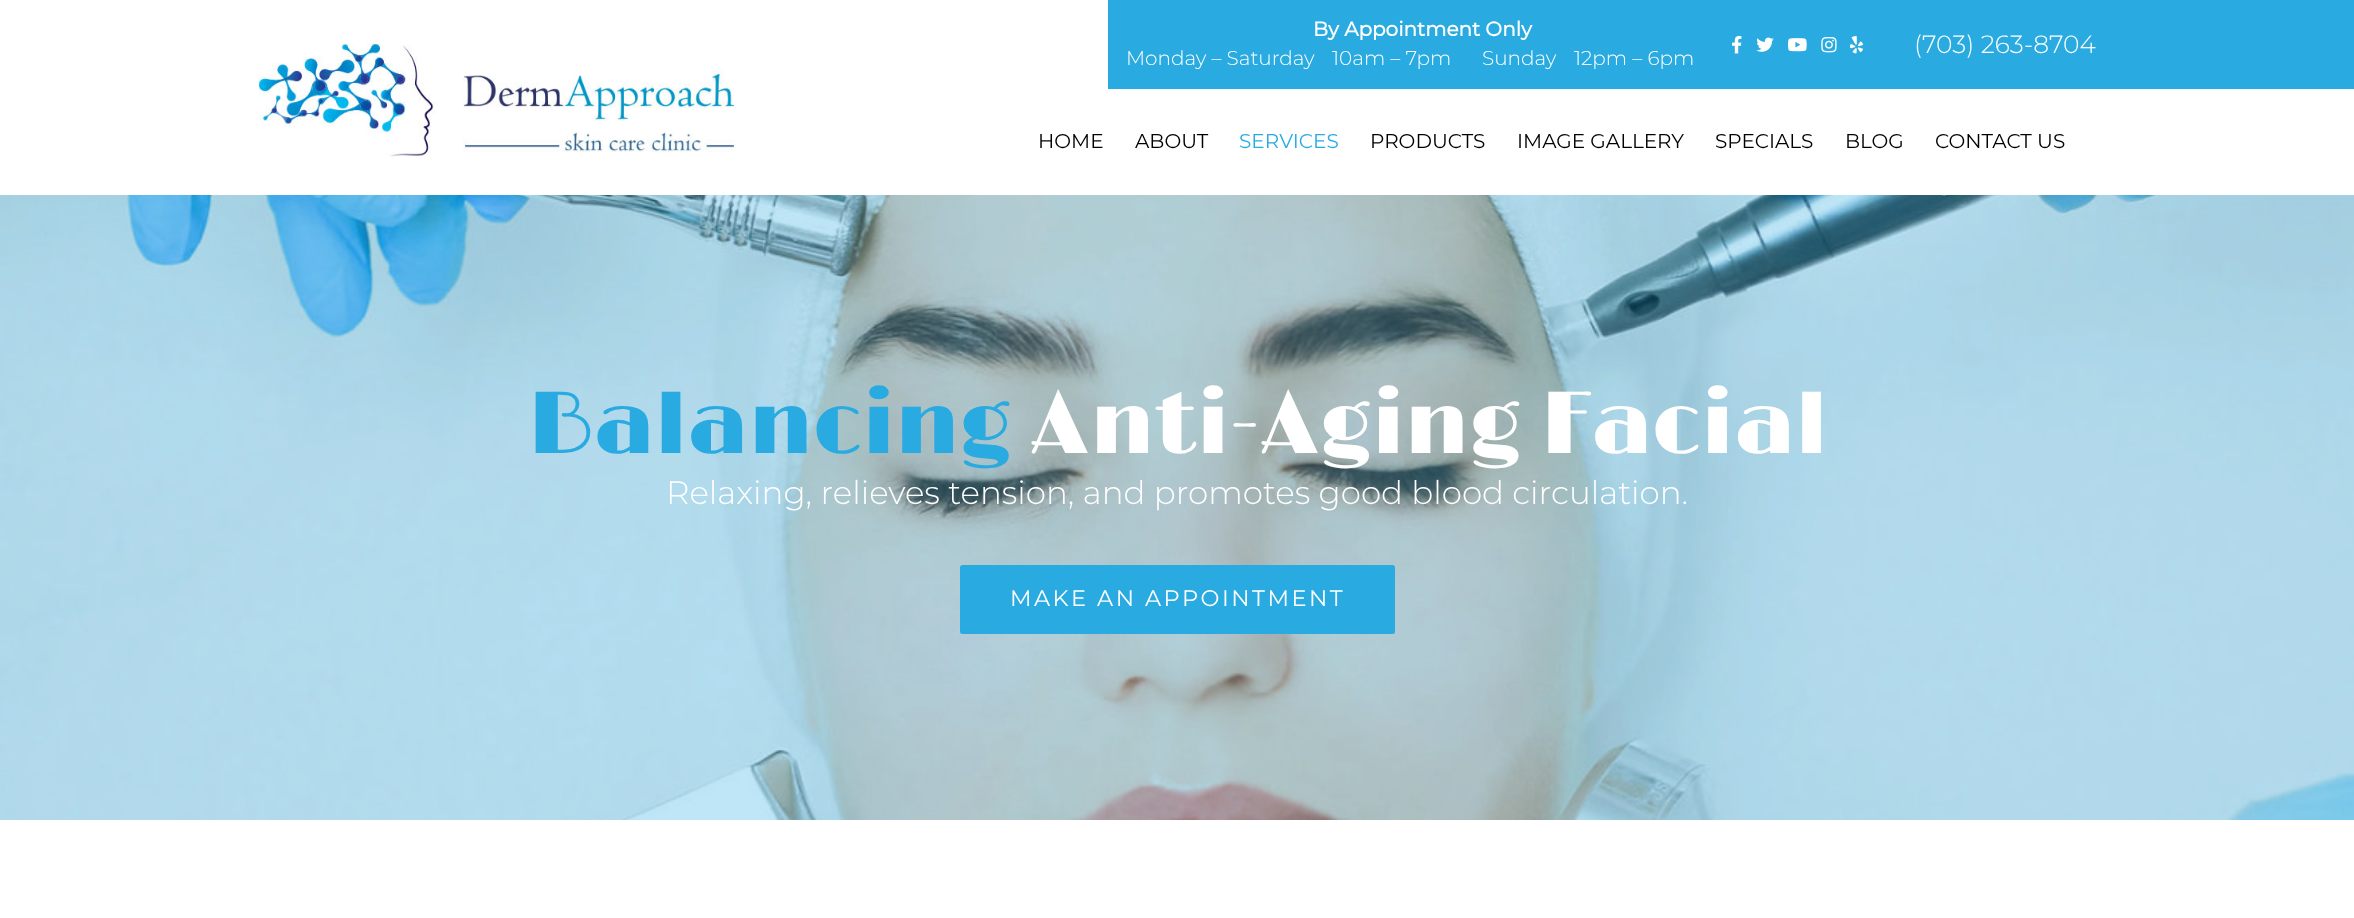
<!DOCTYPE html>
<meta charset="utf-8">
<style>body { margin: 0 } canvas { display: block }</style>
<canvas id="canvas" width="2354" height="918"></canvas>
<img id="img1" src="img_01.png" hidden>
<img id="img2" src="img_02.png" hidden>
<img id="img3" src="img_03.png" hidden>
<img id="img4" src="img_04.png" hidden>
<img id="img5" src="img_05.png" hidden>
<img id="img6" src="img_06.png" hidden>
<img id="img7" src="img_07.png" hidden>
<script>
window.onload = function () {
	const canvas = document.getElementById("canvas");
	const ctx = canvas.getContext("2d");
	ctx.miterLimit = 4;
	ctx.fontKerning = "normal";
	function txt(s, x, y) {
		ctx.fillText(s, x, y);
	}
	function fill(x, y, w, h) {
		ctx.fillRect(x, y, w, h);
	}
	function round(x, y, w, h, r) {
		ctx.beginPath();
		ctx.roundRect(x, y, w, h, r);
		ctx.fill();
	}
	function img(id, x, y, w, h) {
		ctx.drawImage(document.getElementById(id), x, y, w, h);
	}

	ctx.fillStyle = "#FFFFFF";
	fill(0, 0, 2354, 918);
	ctx.fillStyle = "#29ABE1";
	fill(1108, 0, 1246, 89);
	img("img1", 1732, 35, 10, 19);
	img("img2", 1756, 37, 18, 15);
	img("img3", 1788, 38, 19, 14);
	img("img4", 1821, 37, 16, 16);
	img("img5", 1850, 36, 14, 18);
	img("img6", 259, 44, 475, 113);
	img("img7", 0, 195, 2354, 625);
	round(960, 565, 435, 69, 2.5);
	ctx.font = "bold 20px Montserrat";
	ctx.fillStyle = "#FFFFFF";
	txt("By Appointment Only", 1313, 36);
	ctx.font = "300 20px Montserrat";
	txt("Monday – Saturday", 1126, 65);
	txt("10am – 7pm", 1332, 65);
	txt("Sunday", 1482, 65);
	txt("12pm – 6pm", 1574, 65);
	ctx.font = "300 25px Montserrat";
	txt("(703) 263-8704", 1914, 53);
	ctx.font = "20px Montserrat";
	ctx.fillStyle = "#000000";
	txt("HOME", 1038, 148);
	txt("ABOUT", 1135, 148);
	ctx.fillStyle = "#29ABE1";
	txt("SERVICES", 1239, 148);
	ctx.fillStyle = "#000000";
	txt("PRODUCTS", 1370, 148);
	txt("IMAGE GALLERY", 1517, 148);
	txt("SPECIALS", 1715, 148);
	txt("BLOG", 1845, 148);
	txt("CONTACT US", 1935, 148);
	ctx.font = "300 88.75px Limelight";
	ctx.fillStyle = "#29ABE1";
	txt("Balancing", 528, 453);
	ctx.fillStyle = "#FFFFFF";
	txt("Anti-Aging Facial", 1031, 453);
	ctx.font = "300 32.5px Montserrat";
	txt("Relaxing, relieves tension, and promotes good blood circulation.", 666, 504);
	ctx.letterSpacing = "2.5px";
	ctx.font = "22.5px Montserrat";
	txt("MAKE AN APPOINTMENT", 1010, 606);
};
</script>
